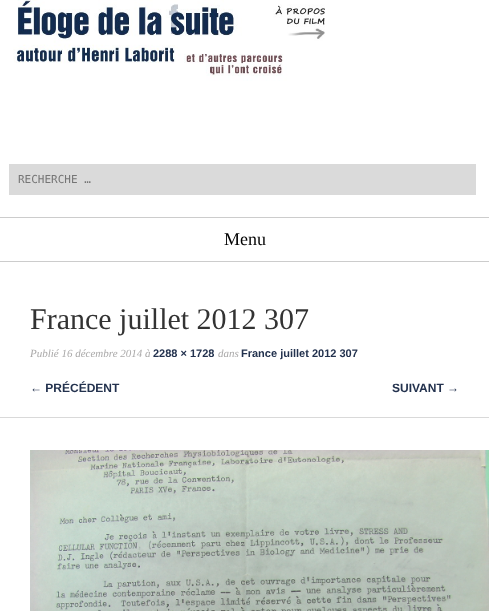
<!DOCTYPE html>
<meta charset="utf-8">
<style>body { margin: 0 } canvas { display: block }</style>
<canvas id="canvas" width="489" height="611"></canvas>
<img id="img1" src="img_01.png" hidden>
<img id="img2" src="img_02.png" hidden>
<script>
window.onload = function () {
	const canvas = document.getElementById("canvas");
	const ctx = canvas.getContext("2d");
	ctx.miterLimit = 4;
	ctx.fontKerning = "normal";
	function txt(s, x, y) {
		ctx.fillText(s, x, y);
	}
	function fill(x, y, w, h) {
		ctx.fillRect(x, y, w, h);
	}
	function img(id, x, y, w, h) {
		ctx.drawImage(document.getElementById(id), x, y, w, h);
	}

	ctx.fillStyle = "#FFFFFF";
	fill(0, 0, 489, 611);
	img("img1", 13, 0, 312, 81);
	ctx.fillStyle = "#DADADA";
	fill(9, 164, 467, 31);
	ctx.fillStyle = "#CCCCCC";
	fill(0, 217, 489, 1);
	fill(0, 261, 489, 1);
	ctx.fillStyle = "#D9D9D9";
	fill(0, 417, 489, 1);
	img("img2", 30, 450, 459, 161);
	ctx.font = "11px DejaVu Sans Mono";
	ctx.fillStyle = "#757575";
	txt("RECHERCHE …", 18, 183);
	ctx.font = "18px Liberation Serif";
	ctx.fillStyle = "#000000";
	txt("Menu", 224, 245);
	ctx.font = "30px Liberation Serif";
	ctx.fillStyle = "#333333";
	txt("France juillet 2012 307", 30, 329);
	ctx.font = "italic 11px Liberation Serif";
	ctx.fillStyle = "#AAA9A9";
	txt("Publié 16 décembre 2014 à", 30, 357);
	ctx.font = "bold 11px Liberation Sans";
	ctx.fillStyle = "#23324E";
	txt("2288 × 1728", 153, 357);
	ctx.font = "italic 11px Liberation Serif";
	ctx.fillStyle = "#AAA9A9";
	txt("dans", 218, 357);
	ctx.font = "bold 11px Liberation Sans";
	ctx.fillStyle = "#23324E";
	txt("France juillet 2012 307", 241, 357);
	ctx.font = "bold 12px Liberation Sans";
	txt("← PRÉCÉDENT", 30, 392);
	txt("SUIVANT →", 392, 392);
};
</script>
